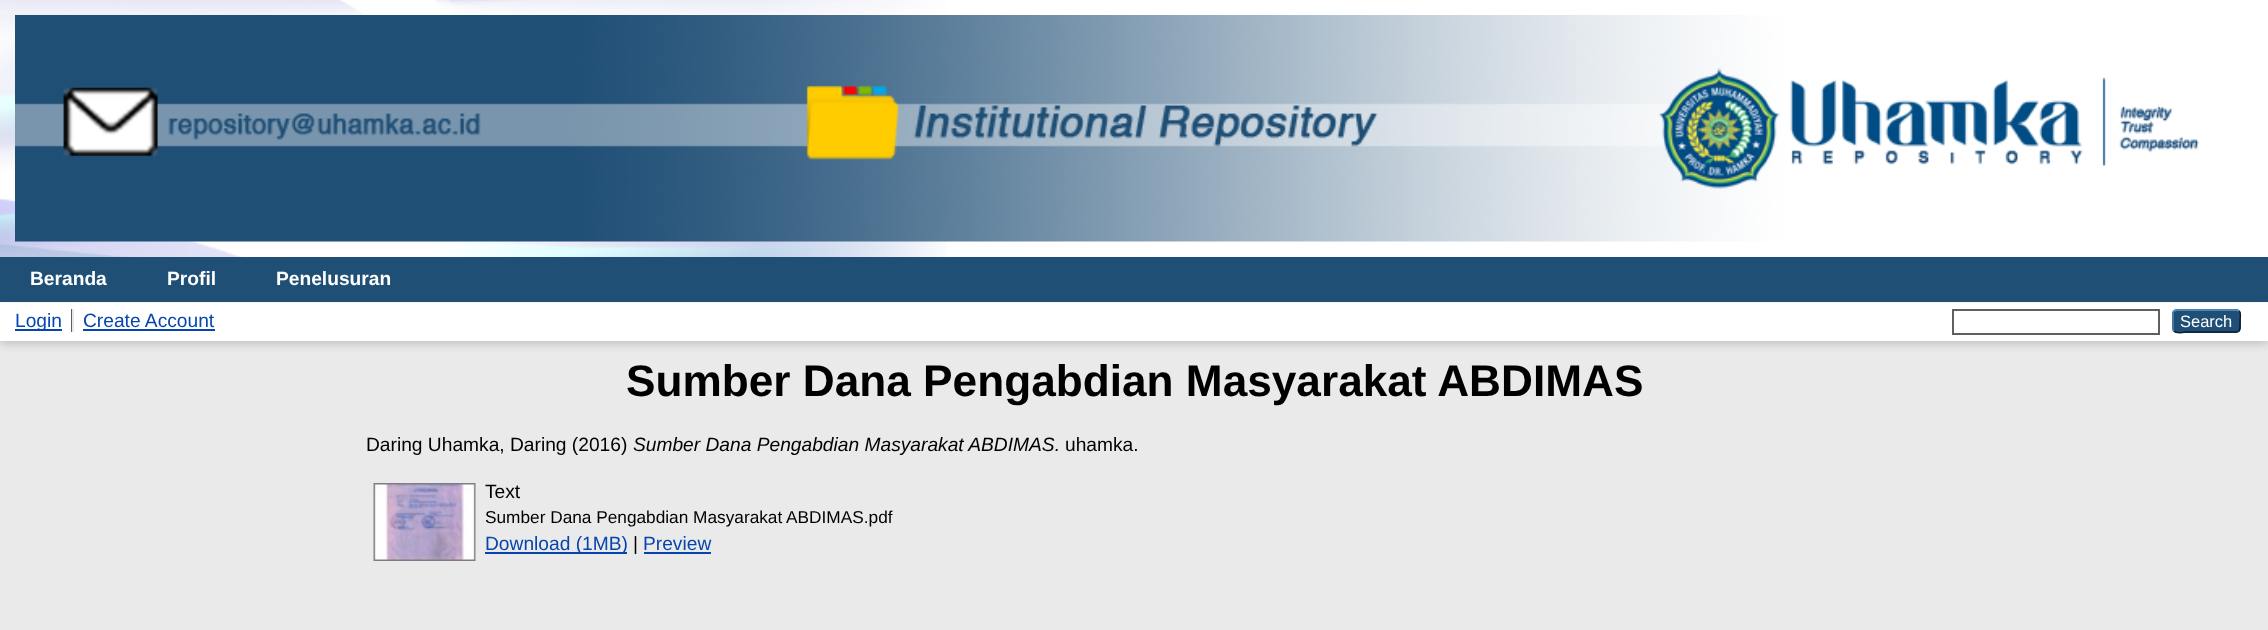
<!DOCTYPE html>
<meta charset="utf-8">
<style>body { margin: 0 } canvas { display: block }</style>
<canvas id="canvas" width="2268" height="630"></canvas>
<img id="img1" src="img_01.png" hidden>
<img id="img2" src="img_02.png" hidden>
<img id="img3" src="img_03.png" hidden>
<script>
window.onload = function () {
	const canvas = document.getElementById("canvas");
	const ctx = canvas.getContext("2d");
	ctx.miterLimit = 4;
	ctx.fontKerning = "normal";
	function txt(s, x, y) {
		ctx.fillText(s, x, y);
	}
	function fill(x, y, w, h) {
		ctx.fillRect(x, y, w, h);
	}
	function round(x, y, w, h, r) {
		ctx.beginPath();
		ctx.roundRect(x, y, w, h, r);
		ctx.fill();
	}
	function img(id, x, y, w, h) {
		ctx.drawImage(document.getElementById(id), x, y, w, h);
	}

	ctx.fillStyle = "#EAEAEA";
	fill(0, 0, 2268, 630);
	ctx.fillStyle = "#FFFFFF";
	fill(0, 0, 2268, 257);
	img("img1", 0, 0, 947, 257);
	img("img2", 15, 15, 2184, 227);
	ctx.fillStyle = "#204F76";
	fill(0, 257, 2268, 45);
	ctx.fillStyle = "#FFFFFF";
	fill(0, 302, 2268, 1);
	ctx.fillStyle = "rgba(100, 100, 100, 0.3)";
	ctx.filter = "blur(4.5px)";
	ctx.beginPath();
	ctx.rect(0, 306, 2268, 38);
	ctx.fill();
	ctx.filter = "none";
	ctx.fillStyle = "#FFFFFF";
	fill(0, 303, 2268, 38);
	ctx.fillStyle = "#606060";
	fill(71, 309, 1, 23);
	ctx.fillStyle = "#0645AD";
	fill(15, 329, 47, 2);
	ctx.fillStyle = "#E8E8E8";
	fill(72, 309, 2, 23);
	ctx.fillStyle = "#0645AD";
	fill(83, 329, 132, 2);
	ctx.strokeStyle = "#606060";
	ctx.lineWidth = 2;
	ctx.strokeRect(1953, 310, 206, 24);
	ctx.fillStyle = "#1F4F76";
	round(2172, 309, 69, 24, 5);
	ctx.beginPath();
	ctx.moveTo(2174, 311);
	ctx.lineTo(2176, 310);
	ctx.lineTo(2237, 310);
	ctx.lineTo(2239, 311);
	ctx.strokeStyle = "#5B97C7";
	ctx.lineWidth = 1.5;
	ctx.stroke();
	ctx.beginPath();
	ctx.moveTo(2239, 311);
	ctx.bezierCurveTo(2241.5, 313, 2240, 318, 2240, 321);
	ctx.bezierCurveTo(2240, 334, 2240.5, 332, 2226.5, 332);
	ctx.lineTo(2186.5, 332);
	ctx.bezierCurveTo(2186, 332, 2176.5, 334, 2174, 331);
	ctx.strokeStyle = "#0D2131";
	ctx.stroke();
	ctx.beginPath();
	ctx.moveTo(2174, 331);
	ctx.bezierCurveTo(2173, 330.5, 2173, 329.5, 2173, 328.5);
	ctx.lineTo(2173, 313.5);
	ctx.bezierCurveTo(2173, 312.5, 2173, 311.5, 2174, 311);
	ctx.strokeStyle = "#5287B3";
	ctx.stroke();
	img("img3", 373, 483, 103, 78);
	ctx.fillStyle = "#0645AD";
	fill(485, 552, 142, 2);
	fill(644, 552, 67, 2);
	ctx.font = "bold 19.2px Liberation Sans";
	ctx.fillStyle = "#FFFFFF";
	txt("Beranda", 30, 285);
	txt("Profil", 167, 285);
	txt("Penelusuran", 276, 285);
	ctx.font = "19.2px Liberation Sans";
	ctx.fillStyle = "#0645AD";
	txt("Login", 15, 327);
	txt("Create Account", 83, 327);
	ctx.font = "16.5px Liberation Sans";
	ctx.fillStyle = "#FFFFFF";
	txt("Search", 2180, 327);
	ctx.font = "bold 44.2px Liberation Sans";
	ctx.fillStyle = "#000000";
	txt("Sumber Dana Pengabdian Masyarakat ABDIMAS", 626, 396);
	ctx.font = "19.2px Liberation Sans";
	txt("Daring Uhamka, Daring (2016)", 366, 451);
	ctx.font = "italic 19.2px Liberation Sans";
	txt("Sumber Dana Pengabdian Masyarakat ABDIMAS.", 633, 451);
	ctx.font = "19.2px Liberation Sans";
	txt("uhamka.", 1065, 451);
	txt("Text", 485, 498);
	ctx.font = "17.25px Liberation Sans";
	txt("Sumber Dana Pengabdian Masyarakat ABDIMAS.pdf", 485, 523);
	ctx.font = "19.2px Liberation Sans";
	ctx.fillStyle = "#0645AD";
	txt("Download (1MB)", 485, 550);
	ctx.fillStyle = "#000000";
	txt("|", 633, 550);
	ctx.fillStyle = "#0645AD";
	txt("Preview", 643, 550);
};
</script>
